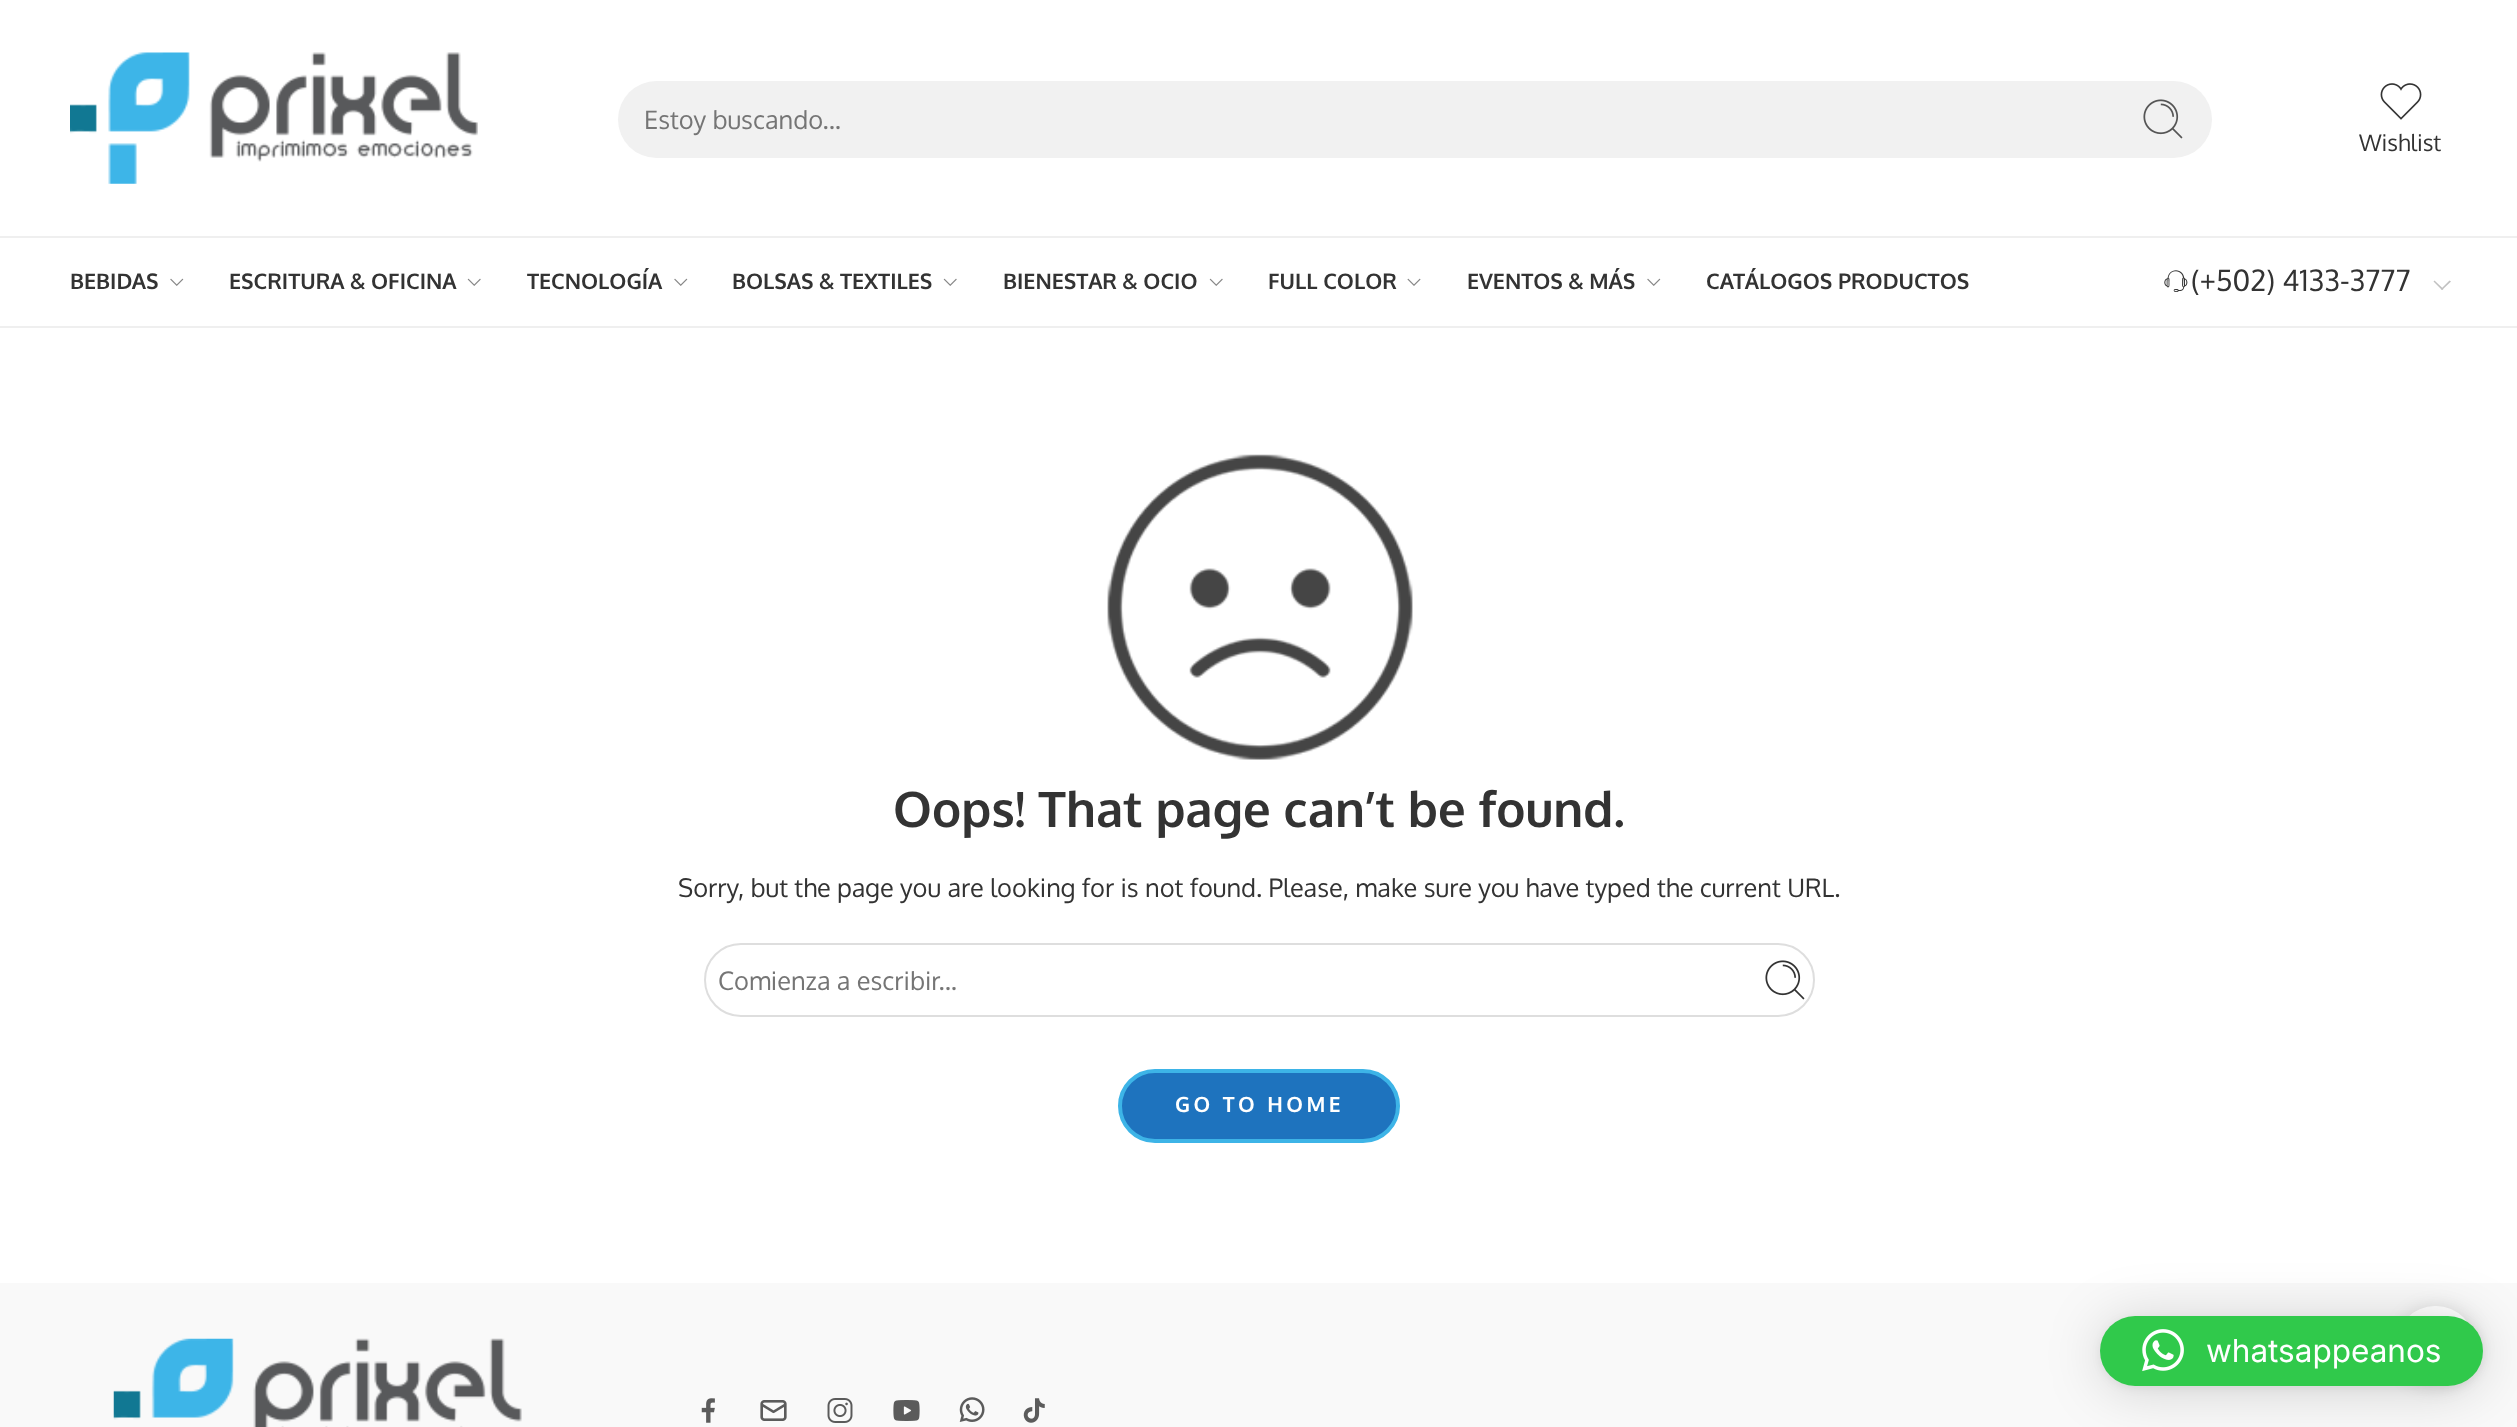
<!DOCTYPE html>
<meta charset="utf-8">
<style>body { margin: 0 } canvas { display: block }</style>
<canvas id="canvas" width="2517" height="1427"></canvas>
<img id="img1" src="img_01.png" hidden>
<img id="img2" src="img_02.png" hidden>
<img id="img3" src="img_03.png" hidden>
<img id="img4" src="img_04.png" hidden>
<img id="img5" src="img_05.png" hidden>
<img id="img6" src="img_06.png" hidden>
<img id="img7" src="img_07.png" hidden>
<img id="img8" src="img_08.png" hidden>
<img id="img9" src="img_09.png" hidden>
<img id="img10" src="img_10.png" hidden>
<img id="img11" src="img_11.png" hidden>
<img id="img12" src="img_12.png" hidden>
<img id="img13" src="img_13.png" hidden>
<img id="img14" src="img_14.png" hidden>
<img id="img15" src="img_15.png" hidden>
<img id="img16" src="img_16.png" hidden>
<img id="img17" src="img_17.png" hidden>
<script>
window.onload = function () {
	const canvas = document.getElementById("canvas");
	const ctx = canvas.getContext("2d");
	ctx.miterLimit = 4;
	ctx.fontKerning = "normal";
	function txt(s, x, y) {
		ctx.fillText(s, x, y);
	}
	function fill(x, y, w, h) {
		ctx.fillRect(x, y, w, h);
	}
	function round(x, y, w, h, r) {
		ctx.beginPath();
		ctx.roundRect(x, y, w, h, r);
		ctx.fill();
	}
	function img(id, x, y, w, h) {
		ctx.drawImage(document.getElementById(id), x, y, w, h);
	}

	ctx.fillStyle = "#FFFFFF";
	fill(0, 0, 2517, 1427);
	img("img1", 70, 52, 408, 132);
	ctx.fillStyle = "#F1F1F1";
	round(618, 81, 1594, 77, 38.5);
	img("img2", 2143, 99, 40, 40);
	img("img3", 2380, 83, 42, 37);
	ctx.fillStyle = "#EFEFEF";
	fill(0, 236, 2517, 2);
	fill(0, 326, 2517, 2);
	img("img4", 170, 278, 14, 8);
	img("img5", 467, 278, 14, 8);
	img("img4", 674, 278, 14, 8);
	img("img5", 943, 278, 14, 8);
	img("img5", 1209, 278, 14, 8);
	img("img6", 1407, 278, 14, 8);
	img("img4", 1647, 278, 14, 8);
	img("img7", 2164, 270, 24, 22);
	ctx.fillStyle = "#C1C1C1";
	ctx.beginPath();
	ctx.moveTo(2441, 289);
	ctx.lineTo(2449.5, 280.5);
	ctx.lineTo(2451, 281.5);
	ctx.lineTo(2442, 290);
	ctx.closePath();
	ctx.fill();
	ctx.beginPath();
	ctx.moveTo(2433.5, 281.5);
	ctx.lineTo(2434.5, 280.5);
	ctx.lineTo(2443.5, 289);
	ctx.lineTo(2442, 290);
	ctx.closePath();
	ctx.fill();
	img("img8", 1107, 454, 306, 306);
	ctx.beginPath();
	ctx.roundRect(705, 944, 1109, 72, 36);
	ctx.strokeStyle = "#DEDEDE";
	ctx.lineWidth = 2;
	ctx.stroke();
	img("img9", 1765, 960, 40, 40);
	ctx.fillStyle = "#1E73BE";
	ctx.beginPath();
	ctx.roundRect(1120, 1071, 278, 70, 35);
	ctx.fill();
	ctx.strokeStyle = "#3DB4E7";
	ctx.lineWidth = 4;
	ctx.stroke();
	ctx.fillStyle = "#F9F9F9";
	fill(0, 1283, 2517, 144);
	img("img10", 113, 1338, 409, 89);
	img("img11", 701, 1398, 14, 25);
	img("img12", 760, 1400, 27, 21);
	img("img13", 827, 1398, 26, 25);
	img("img14", 893, 1400, 27, 21);
	img("img15", 959, 1397, 26, 25);
	img("img16", 1023, 1398, 22, 25);
	ctx.fillStyle = "rgba(0, 0, 0, 0.1)";
	ctx.filter = "blur(9px)";
	ctx.beginPath();
	ctx.roundRect(2396, 1306, 82, 82, 41);
	ctx.fill();
	ctx.filter = "none";
	ctx.fillStyle = "#FFFFFF";
	round(2396, 1306, 79, 78, 39);
	ctx.fillStyle = "rgba(0, 0, 0, 0.16)";
	ctx.filter = "blur(28px)";
	ctx.beginPath();
	ctx.roundRect(2100, 1320, 383, 70, 35);
	ctx.fill();
	ctx.filter = "none";
	ctx.fillStyle = "rgba(0, 0, 0, 0.06)";
	ctx.filter = "blur(5px)";
	ctx.beginPath();
	ctx.roundRect(2100, 1318, 383, 70, 35);
	ctx.fill();
	ctx.filter = "none";
	ctx.fillStyle = "#30C94B";
	round(2100, 1316, 383, 70, 35);
	img("img17", 2142, 1329, 42, 43);
	ctx.font = "25.4px Oxygen";
	ctx.fillStyle = "#757575";
	txt("Estoy buscando...", 644, 129);
	ctx.font = "23px Oxygen";
	ctx.fillStyle = "#333333";
	txt("Wishlist", 2359, 151);
	ctx.font = "bold 21.5px Oxygen";
	txt("BEBIDAS", 70, 289);
	txt("ESCRITURA & OFICINA", 229, 289);
	txt("TECNOLOGÍA", 527, 289);
	txt("BOLSAS & TEXTILES", 732, 289);
	txt("BIENESTAR & OCIO", 1003, 289);
	txt("FULL COLOR", 1268, 289);
	txt("EVENTOS & MÁS", 1467, 289);
	txt("CATÁLOGOS PRODUCTOS", 1706, 289);
	ctx.font = "29.25px Oxygen";
	txt("(+502) 4133-3777", 2191, 291);
	ctx.font = "bold 49px Oxygen";
	txt("Oops! That page can’t be found.", 893, 827);
	ctx.font = "25.4px Oxygen";
	txt("Sorry, but the page you are looking for is not found. Please, make sure you have typed the current URL.", 678, 897);
	ctx.fillStyle = "#757575";
	txt("Comienza a escribir...", 718, 990);
	ctx.letterSpacing = "3.5px";
	ctx.font = "bold 21px Oxygen";
	ctx.fillStyle = "#FFFFFF";
	txt("GO TO HOME", 1175, 1112);
	ctx.letterSpacing = "0px";
	ctx.font = "31.5px Inter";
	txt("whatsappeanos", 2206, 1362);
};
</script>
